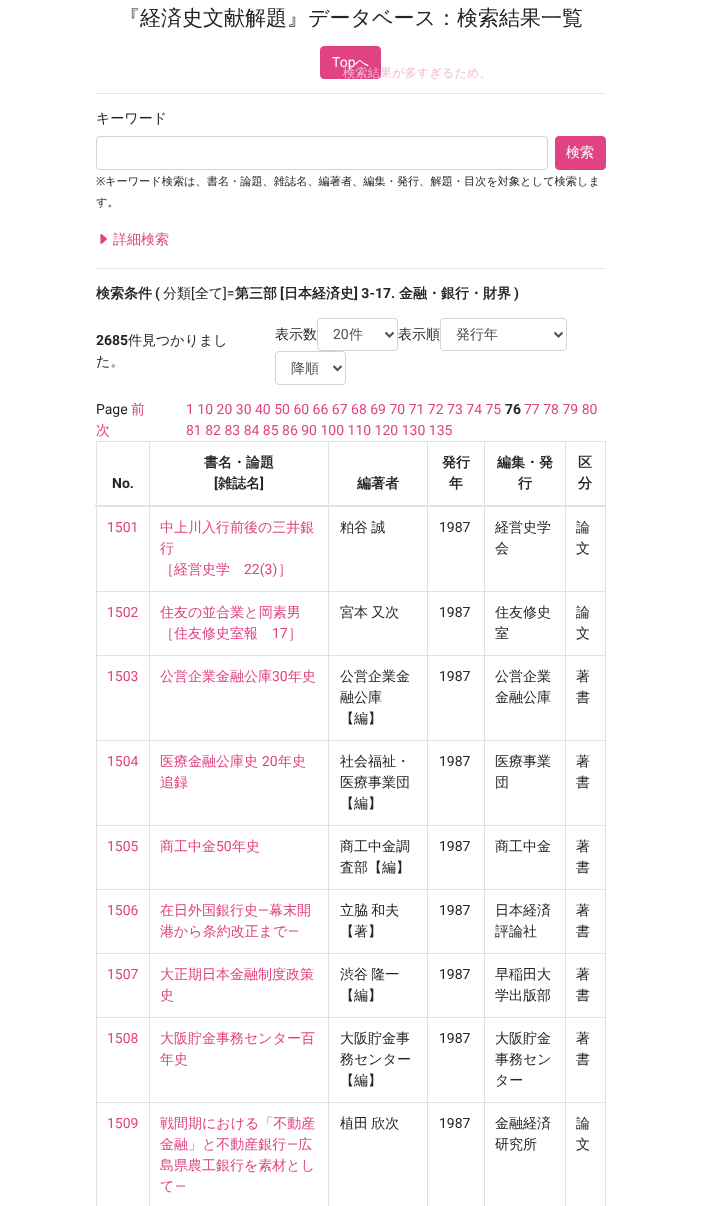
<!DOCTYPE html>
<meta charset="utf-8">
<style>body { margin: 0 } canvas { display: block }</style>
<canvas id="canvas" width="701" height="1206"></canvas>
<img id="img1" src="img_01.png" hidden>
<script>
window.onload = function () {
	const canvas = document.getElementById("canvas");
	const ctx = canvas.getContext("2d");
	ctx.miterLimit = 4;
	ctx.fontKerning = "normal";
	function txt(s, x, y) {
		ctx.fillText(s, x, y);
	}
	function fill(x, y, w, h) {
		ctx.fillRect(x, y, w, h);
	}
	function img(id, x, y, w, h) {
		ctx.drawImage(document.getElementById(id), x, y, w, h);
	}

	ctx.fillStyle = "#FFFFFF";
	fill(0, 0, 701, 1206);
	ctx.fillStyle = "#E04283";
	ctx.beginPath();
	ctx.roundRect(320.5, 46.5, 60, 32, 3.5);
	ctx.fill();
	ctx.strokeStyle = "#E04283";
	ctx.stroke();
	ctx.beginPath();
	ctx.roundRect(96.5, 136.5, 451, 33, 3.5);
	ctx.strokeStyle = "#CED4DA";
	ctx.stroke();
	ctx.beginPath();
	ctx.roundRect(555.5, 136.5, 50, 33, 3.5);
	ctx.fill();
	ctx.strokeStyle = "#E04283";
	ctx.stroke();
	img("img1", 100, 234, 7, 10);
	ctx.fillStyle = "#E6E6E6";
	fill(96, 268, 510, 1);
	ctx.beginPath();
	ctx.roundRect(275.5, 351.5, 70, 33, 3.5);
	ctx.strokeStyle = "#CED4DA";
	ctx.stroke();
	ctx.beginPath();
	ctx.moveTo(333.5, 366);
	ctx.lineTo(337.5, 370);
	ctx.lineTo(341.5, 366);
	ctx.strokeStyle = "#495057";
	ctx.lineWidth = 2;
	ctx.stroke();
	ctx.fillStyle = "#DEE2E6";
	fill(96, 441, 510, 1);
	fill(605, 441, 1, 765);
	fill(96, 441, 1, 765);
	fill(565, 591, 41, 1);
	fill(565, 655, 41, 1);
	fill(565, 740, 41, 1);
	fill(565, 825, 41, 1);
	fill(565, 889, 41, 1);
	fill(565, 953, 41, 1);
	fill(565, 1017, 41, 1);
	fill(565, 1102, 41, 1);
	fill(565, 1102, 1, 104);
	fill(484, 1102, 82, 1);
	fill(565, 1017, 1, 86);
	fill(484, 1017, 82, 1);
	fill(565, 953, 1, 65);
	fill(484, 953, 82, 1);
	fill(565, 889, 1, 65);
	fill(484, 889, 82, 1);
	fill(565, 825, 1, 65);
	fill(484, 825, 82, 1);
	fill(565, 740, 1, 86);
	fill(484, 740, 82, 1);
	fill(565, 655, 1, 86);
	fill(484, 655, 82, 1);
	fill(565, 591, 1, 65);
	fill(484, 591, 82, 1);
	fill(484, 1102, 1, 104);
	fill(427, 1102, 58, 1);
	fill(484, 1017, 1, 86);
	fill(427, 1017, 58, 1);
	fill(484, 953, 1, 65);
	fill(427, 953, 58, 1);
	fill(484, 889, 1, 65);
	fill(427, 889, 58, 1);
	fill(484, 825, 1, 65);
	fill(427, 825, 58, 1);
	fill(484, 740, 1, 86);
	fill(427, 740, 58, 1);
	fill(484, 655, 1, 86);
	fill(427, 655, 58, 1);
	fill(484, 591, 1, 65);
	fill(427, 591, 58, 1);
	fill(427, 1102, 1, 104);
	fill(328, 1102, 100, 1);
	fill(427, 1017, 1, 86);
	fill(328, 1017, 100, 1);
	fill(427, 953, 1, 65);
	fill(328, 953, 100, 1);
	fill(427, 889, 1, 65);
	fill(328, 889, 100, 1);
	fill(427, 825, 1, 65);
	fill(328, 825, 100, 1);
	fill(427, 740, 1, 86);
	fill(328, 740, 100, 1);
	fill(427, 655, 1, 86);
	fill(328, 655, 100, 1);
	fill(427, 591, 1, 65);
	fill(328, 591, 100, 1);
	fill(328, 1102, 1, 104);
	fill(149, 1102, 180, 1);
	fill(328, 1017, 1, 86);
	fill(149, 1017, 180, 1);
	fill(328, 953, 1, 65);
	fill(149, 953, 180, 1);
	fill(328, 889, 1, 65);
	fill(149, 889, 180, 1);
	fill(328, 825, 1, 65);
	fill(149, 825, 180, 1);
	fill(328, 740, 1, 86);
	fill(149, 740, 180, 1);
	fill(328, 655, 1, 86);
	fill(149, 655, 180, 1);
	fill(328, 591, 1, 65);
	fill(149, 591, 180, 1);
	fill(149, 1102, 1, 104);
	fill(96, 1102, 54, 1);
	fill(149, 1017, 1, 86);
	fill(96, 1017, 54, 1);
	fill(149, 953, 1, 65);
	fill(96, 953, 54, 1);
	fill(149, 889, 1, 65);
	fill(96, 889, 54, 1);
	fill(149, 825, 1, 65);
	fill(96, 825, 54, 1);
	fill(149, 740, 1, 86);
	fill(96, 740, 54, 1);
	fill(149, 655, 1, 86);
	fill(96, 655, 54, 1);
	fill(149, 591, 1, 65);
	fill(96, 591, 54, 1);
	fill(149, 441, 1, 151);
	fill(328, 441, 1, 151);
	fill(427, 441, 1, 151);
	fill(484, 441, 1, 151);
	fill(565, 441, 1, 151);
	fill(95, 505, 511, 2);
	ctx.fillStyle = "#E6E6E6";
	fill(96, 93, 510, 1);
	ctx.font = "500 21px WenQuanYi Zen Hei";
	ctx.fillStyle = "#212529";
	txt("『経済史文献解題』データベース：検索結果一覧", 119, 25);
	ctx.font = "14px Roboto";
	ctx.fillStyle = "#FFFFFF";
	txt("Top", 332, 67);
	ctx.font = "500 14px WenQuanYi Zen Hei";
	txt("へ", 355, 67);
	ctx.font = "500 12.25px WenQuanYi Zen Hei";
	ctx.fillStyle = "#F4BBD2";
	txt("検索結果が多すぎるため、", 343, 77);
	ctx.font = "500 14px WenQuanYi Zen Hei";
	ctx.fillStyle = "#212529";
	txt("キーワード", 96, 123);
	ctx.fillStyle = "#FFFFFF";
	txt("検索", 566, 157);
	ctx.font = "11.2px Noto Sans";
	ctx.fillStyle = "#212529";
	txt("※", 96, 185);
	ctx.font = "500 11.2px WenQuanYi Zen Hei";
	txt("キーワード検索は、書名・論題、雑誌名、編著者、編集・発行、解題・目次を対象として検索しま", 105, 185);
	txt("す。", 96, 206);
	ctx.font = "500 14px WenQuanYi Zen Hei";
	ctx.fillStyle = "#E04283";
	txt("詳細検索", 113, 244);
	ctx.font = "bold 14px WenQuanYi Zen Hei";
	ctx.fillStyle = "#212529";
	txt("検索条件", 96, 298);
	ctx.font = "bold 14px Roboto";
	txt("(", 155, 298);
	ctx.font = "500 14px WenQuanYi Zen Hei";
	txt("分類", 163, 298);
	ctx.font = "14px Roboto";
	txt("[", 191, 298);
	ctx.font = "500 14px WenQuanYi Zen Hei";
	txt("全て", 195, 298);
	ctx.font = "14px Roboto";
	txt("]=", 223, 298);
	ctx.font = "bold 14px WenQuanYi Zen Hei";
	txt("第三部", 235, 298);
	ctx.font = "bold 14px Roboto";
	txt("[", 280, 298);
	ctx.font = "bold 14px WenQuanYi Zen Hei";
	txt("日本経済史", 284, 298);
	ctx.font = "bold 14px Roboto";
	txt("] 3-17.", 354, 298);
	ctx.font = "bold 14px WenQuanYi Zen Hei";
	txt("金融・銀行・財界", 399, 298);
	ctx.font = "bold 14px Roboto";
	txt(")", 514, 298);
	txt("2685", 96, 345);
	ctx.font = "500 14px WenQuanYi Zen Hei";
	txt("件見つかりまし", 128, 345);
	txt("た。", 96, 366);
	txt("表示数", 275, 339);
	ctx.beginPath();
	ctx.roundRect(317.5, 318.5, 80, 32, 3.5);
	ctx.strokeStyle = "#CED4DA";
	ctx.lineWidth = 1;
	ctx.stroke();
	ctx.beginPath();
	ctx.moveTo(385.5, 332.5);
	ctx.lineTo(389.5, 336.5);
	ctx.lineTo(393.5, 332.5);
	ctx.strokeStyle = "#495057";
	ctx.lineWidth = 2;
	ctx.stroke();
	ctx.font = "14px Roboto";
	ctx.fillStyle = "#495057";
	txt("20", 333, 339);
	ctx.font = "500 14px WenQuanYi Zen Hei";
	txt("件", 349, 339);
	ctx.fillStyle = "#212529";
	txt("表示順", 398, 339);
	ctx.beginPath();
	ctx.roundRect(440.5, 318.5, 126, 32, 3.5);
	ctx.strokeStyle = "#CED4DA";
	ctx.lineWidth = 1;
	ctx.stroke();
	ctx.beginPath();
	ctx.moveTo(554.5, 332.5);
	ctx.lineTo(558.5, 336.5);
	ctx.lineTo(562.5, 332.5);
	ctx.strokeStyle = "#495057";
	ctx.lineWidth = 2;
	ctx.stroke();
	ctx.fillStyle = "#495057";
	txt("発行年", 456, 339);
	txt("降順", 291, 373);
	ctx.font = "14px Roboto";
	ctx.fillStyle = "#212529";
	txt("Page", 96, 414);
	ctx.font = "500 14px WenQuanYi Zen Hei";
	ctx.fillStyle = "#E04283";
	txt("前", 131, 414);
	txt("次", 96, 435);
	ctx.font = "14px Roboto";
	txt("1 10 20 30 40 50 60 66 67 68 69 70 71 72 73 74 75", 186, 414);
	ctx.font = "bold 14px Roboto";
	ctx.fillStyle = "#212529";
	txt("76", 505, 414);
	ctx.font = "14px Roboto";
	ctx.fillStyle = "#E04283";
	txt("77 78 79 80", 524, 414);
	txt("81 82 83 84 85 86 90 100 110 120 130 135", 186, 435);
	ctx.font = "bold 14px Roboto";
	ctx.fillStyle = "#212529";
	txt("No.", 112, 488);
	ctx.font = "bold 14px WenQuanYi Zen Hei";
	txt("書名・論題", 204, 467);
	ctx.font = "bold 14px Roboto";
	txt("[", 214, 488);
	ctx.font = "bold 14px WenQuanYi Zen Hei";
	txt("雑誌名", 218, 488);
	ctx.font = "bold 14px Roboto";
	txt("]", 260, 488);
	ctx.font = "bold 14px WenQuanYi Zen Hei";
	txt("編著者", 357, 488);
	txt("発行", 442, 467);
	txt("年", 449, 488);
	txt("編集・発", 497, 467);
	txt("行", 518, 488);
	txt("区", 578, 467);
	txt("分", 578, 488);
	ctx.font = "14px Roboto";
	ctx.fillStyle = "#E04283";
	txt("1501", 107, 532);
	ctx.font = "500 14px WenQuanYi Zen Hei";
	txt("中上川入行前後の三井銀", 160, 532);
	txt("行", 160, 553);
	txt("［経営史学", 160, 574);
	ctx.font = "14px Roboto";
	txt("22(3)", 244, 574);
	ctx.font = "500 14px WenQuanYi Zen Hei";
	txt("］", 278, 574);
	ctx.wordSpacing = "-1px";
	ctx.fillStyle = "#212529";
	txt("粕谷 誠", 340, 532);
	ctx.wordSpacing = "0px";
	ctx.font = "14px Roboto";
	txt("1987", 439, 532);
	ctx.font = "500 14px WenQuanYi Zen Hei";
	txt("経営史学", 495, 532);
	txt("会", 495, 553);
	txt("論", 576, 532);
	txt("文", 576, 553);
	ctx.font = "14px Roboto";
	ctx.fillStyle = "#E04283";
	txt("1502", 107, 617);
	ctx.font = "500 14px WenQuanYi Zen Hei";
	txt("住友の並合業と岡素男", 160, 617);
	txt("［住友修史室報", 160, 638);
	ctx.font = "14px Roboto";
	txt("17", 272, 638);
	ctx.font = "500 14px WenQuanYi Zen Hei";
	txt("］", 288, 638);
	ctx.wordSpacing = "-1px";
	ctx.fillStyle = "#212529";
	txt("宮本 又次", 340, 617);
	ctx.wordSpacing = "0px";
	ctx.font = "14px Roboto";
	txt("1987", 439, 617);
	ctx.font = "500 14px WenQuanYi Zen Hei";
	txt("住友修史", 495, 617);
	txt("室", 495, 638);
	txt("論", 576, 617);
	txt("文", 576, 638);
	ctx.font = "14px Roboto";
	ctx.fillStyle = "#E04283";
	txt("1503", 107, 681);
	ctx.font = "500 14px WenQuanYi Zen Hei";
	txt("公営企業金融公庫", 160, 681);
	ctx.font = "14px Roboto";
	txt("30", 272, 681);
	ctx.font = "500 14px WenQuanYi Zen Hei";
	txt("年史", 288, 681);
	ctx.fillStyle = "#212529";
	txt("公営企業金", 340, 681);
	txt("融公庫", 340, 702);
	txt("【編】", 340, 723);
	ctx.font = "14px Roboto";
	txt("1987", 439, 681);
	ctx.font = "500 14px WenQuanYi Zen Hei";
	txt("公営企業", 495, 681);
	txt("金融公庫", 495, 702);
	txt("著", 576, 681);
	txt("書", 576, 702);
	ctx.font = "14px Roboto";
	ctx.fillStyle = "#E04283";
	txt("1504", 107, 766);
	ctx.font = "500 14px WenQuanYi Zen Hei";
	txt("医療金融公庫史", 160, 766);
	ctx.font = "14px Roboto";
	txt("20", 262, 766);
	ctx.font = "500 14px WenQuanYi Zen Hei";
	txt("年史", 278, 766);
	txt("追録", 160, 787);
	ctx.fillStyle = "#212529";
	txt("社会福祉・", 340, 766);
	txt("医療事業団", 340, 787);
	txt("【編】", 340, 808);
	ctx.font = "14px Roboto";
	txt("1987", 439, 766);
	ctx.font = "500 14px WenQuanYi Zen Hei";
	txt("医療事業", 495, 766);
	txt("団", 495, 787);
	txt("著", 576, 766);
	txt("書", 576, 787);
	ctx.font = "14px Roboto";
	ctx.fillStyle = "#E04283";
	txt("1505", 107, 851);
	ctx.font = "500 14px WenQuanYi Zen Hei";
	txt("商工中金", 160, 851);
	ctx.font = "14px Roboto";
	txt("50", 216, 851);
	ctx.font = "500 14px WenQuanYi Zen Hei";
	txt("年史", 232, 851);
	ctx.fillStyle = "#212529";
	txt("商工中金調", 340, 851);
	txt("査部【編】", 340, 872);
	ctx.font = "14px Roboto";
	txt("1987", 439, 851);
	ctx.font = "500 14px WenQuanYi Zen Hei";
	txt("商工中金", 495, 851);
	txt("著", 576, 851);
	txt("書", 576, 872);
	ctx.font = "14px Roboto";
	ctx.fillStyle = "#E04283";
	txt("1506", 107, 915);
	ctx.font = "500 14px WenQuanYi Zen Hei";
	txt("在日外国銀行史", 160, 915);
	ctx.font = "14px Roboto";
	txt("—", 258, 915);
	ctx.font = "500 14px WenQuanYi Zen Hei";
	txt("幕末開", 269, 915);
	txt("港から条約改正まで", 160, 936);
	ctx.font = "14px Roboto";
	txt("—", 288, 936);
	ctx.wordSpacing = "-1px";
	ctx.font = "500 14px WenQuanYi Zen Hei";
	ctx.fillStyle = "#212529";
	txt("立脇 和夫", 340, 915);
	ctx.wordSpacing = "0px";
	txt("【著】", 340, 936);
	ctx.font = "14px Roboto";
	txt("1987", 439, 915);
	ctx.font = "500 14px WenQuanYi Zen Hei";
	txt("日本経済", 495, 915);
	txt("評論社", 495, 936);
	txt("著", 576, 915);
	txt("書", 576, 936);
	ctx.font = "14px Roboto";
	ctx.fillStyle = "#E04283";
	txt("1507", 107, 979);
	ctx.font = "500 14px WenQuanYi Zen Hei";
	txt("大正期日本金融制度政策", 160, 979);
	txt("史", 160, 1000);
	ctx.wordSpacing = "-1px";
	ctx.fillStyle = "#212529";
	txt("渋谷 隆一", 340, 979);
	ctx.wordSpacing = "0px";
	txt("【編】", 340, 1000);
	ctx.font = "14px Roboto";
	txt("1987", 439, 979);
	ctx.font = "500 14px WenQuanYi Zen Hei";
	txt("早稲田大", 495, 979);
	txt("学出版部", 495, 1000);
	txt("著", 576, 979);
	txt("書", 576, 1000);
	ctx.font = "14px Roboto";
	ctx.fillStyle = "#E04283";
	txt("1508", 107, 1043);
	ctx.font = "500 14px WenQuanYi Zen Hei";
	txt("大阪貯金事務センター百", 160, 1043);
	txt("年史", 160, 1064);
	ctx.fillStyle = "#212529";
	txt("大阪貯金事", 340, 1043);
	txt("務センター", 340, 1064);
	txt("【編】", 340, 1085);
	ctx.font = "14px Roboto";
	txt("1987", 439, 1043);
	ctx.font = "500 14px WenQuanYi Zen Hei";
	txt("大阪貯金", 495, 1043);
	txt("事務セン", 495, 1064);
	txt("ター", 495, 1085);
	txt("著", 576, 1043);
	txt("書", 576, 1064);
	ctx.font = "14px Roboto";
	ctx.fillStyle = "#E04283";
	txt("1509", 107, 1128);
	ctx.font = "500 14px WenQuanYi Zen Hei";
	txt("戦間期における「不動産", 160, 1128);
	txt("金融」と不動産銀行", 160, 1149);
	ctx.font = "14px Roboto";
	txt("—", 287, 1149);
	ctx.font = "500 14px WenQuanYi Zen Hei";
	txt("広", 298, 1149);
	txt("島県農工銀行を素材とし", 160, 1170);
	txt("て", 160, 1191);
	ctx.font = "14px Roboto";
	txt("—", 175, 1191);
	ctx.wordSpacing = "-1px";
	ctx.font = "500 14px WenQuanYi Zen Hei";
	ctx.fillStyle = "#212529";
	txt("植田 欣次", 340, 1128);
	ctx.wordSpacing = "0px";
	ctx.font = "14px Roboto";
	txt("1987", 439, 1128);
	ctx.font = "500 14px WenQuanYi Zen Hei";
	txt("金融経済", 495, 1128);
	txt("研究所", 495, 1149);
	txt("論", 576, 1128);
	txt("文", 576, 1149);
};
</script>
